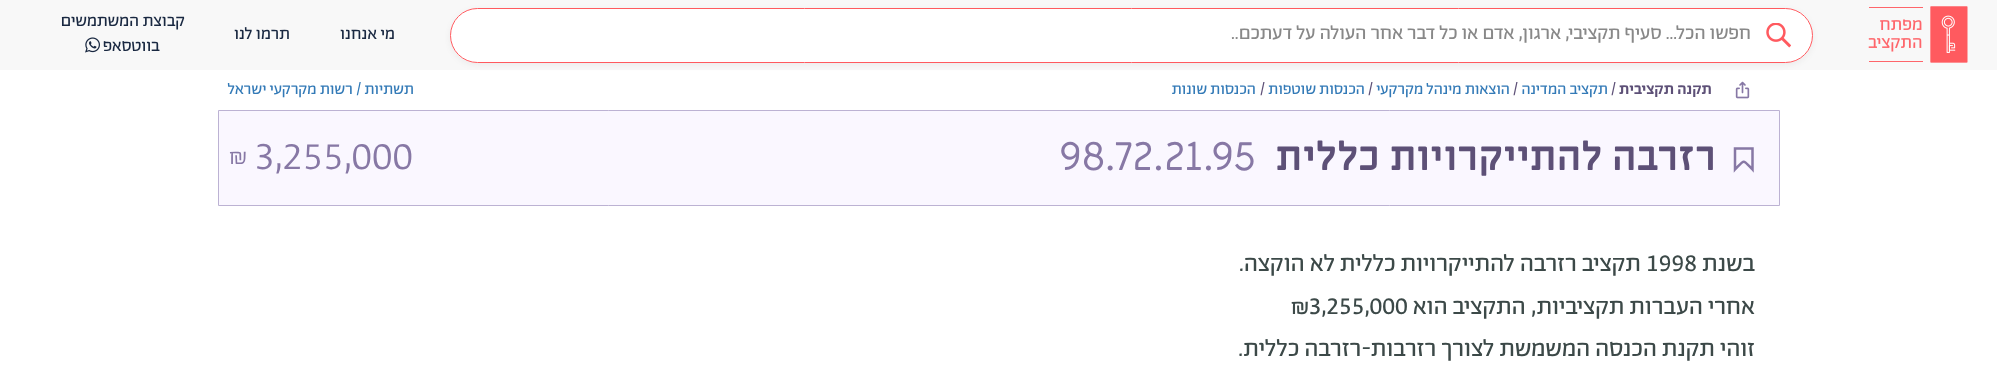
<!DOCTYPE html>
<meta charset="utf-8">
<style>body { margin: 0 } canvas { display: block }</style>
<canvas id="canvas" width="1997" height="379"></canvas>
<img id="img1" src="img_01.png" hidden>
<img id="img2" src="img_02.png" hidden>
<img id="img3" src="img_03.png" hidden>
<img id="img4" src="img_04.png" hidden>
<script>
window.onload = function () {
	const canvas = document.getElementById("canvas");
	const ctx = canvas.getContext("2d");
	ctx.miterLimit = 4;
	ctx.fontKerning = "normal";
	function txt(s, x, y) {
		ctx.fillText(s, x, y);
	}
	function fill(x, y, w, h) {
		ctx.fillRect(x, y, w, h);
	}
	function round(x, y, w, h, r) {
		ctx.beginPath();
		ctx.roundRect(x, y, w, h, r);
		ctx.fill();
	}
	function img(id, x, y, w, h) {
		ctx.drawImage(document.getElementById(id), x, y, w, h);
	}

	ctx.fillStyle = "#FFFFFF";
	fill(0, 0, 1997, 379);
	ctx.fillStyle = "#F8F8F8";
	fill(0, 0, 1997, 70);
	img("img1", 1868, 6, 100, 57);
	ctx.fillStyle = "rgba(0, 0, 0, 0.05)";
	ctx.filter = "blur(3px)";
	ctx.beginPath();
	ctx.roundRect(450, 10, 1363, 55, 27.5);
	ctx.fill();
	ctx.filter = "none";
	ctx.fillStyle = "#FFFFFF";
	round(450, 8, 1363, 55, 27.5);
	img("img2", 1766, 23, 25, 25);
	ctx.beginPath();
	ctx.roundRect(450.5, 8.5, 1362, 54, 27);
	ctx.strokeStyle = "#FF5A5F";
	ctx.stroke();
	img("img3", 85, 37, 15, 16);
	img("img4", 1735, 81, 15, 18);
	ctx.fillStyle = "#FAF7FF";
	ctx.beginPath();
	ctx.rect(218.5, 110.5, 1561, 95);
	ctx.fill();
	ctx.strokeStyle = "#BCB2D3";
	ctx.stroke();
	ctx.beginPath();
	ctx.moveTo(1735, 148.5);
	ctx.lineTo(1752.5, 148.5);
	ctx.lineTo(1752.5, 169.5);
	ctx.bezierCurveTo(1742.5, 159, 1745, 159, 1735, 169.5);
	ctx.closePath();
	ctx.strokeStyle = "#8778A5";
	ctx.lineWidth = 2.5;
	ctx.stroke();
	ctx.direction = "rtl";
	ctx.font = "20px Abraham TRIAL";
	ctx.fillStyle = "#888888";
	txt("חפשו הכל... סעיף תקציבי, ארגון, אדם או כל דבר אחר העולה על דעתכם..", 1751, 39);
	ctx.font = "17.5px Abraham TRIAL";
	ctx.fillStyle = "#192841";
	txt("מי אנחנו", 395, 39);
	txt("תרמו לנו", 290, 39);
	txt("קבוצת המשתמשים", 185, 26);
	txt("בווטסאפ", 160, 51);
	ctx.font = "500 16.25px Abraham TRIAL";
	ctx.fillStyle = "#5D5077";
	txt("תקנה תקציבית", 1712, 94);
	ctx.direction = "ltr";
	ctx.font = "16.25px Abraham TRIAL";
	txt("/", 1611, 94);
	ctx.direction = "rtl";
	ctx.fillStyle = "#337AB7";
	txt("תקציב המדינה", 1608, 94);
	ctx.direction = "ltr";
	ctx.fillStyle = "#5D5077";
	txt("/", 1513, 94);
	ctx.direction = "rtl";
	ctx.fillStyle = "#337AB7";
	txt("הוצאות מינהל מקרקעי", 1510, 94);
	ctx.direction = "ltr";
	ctx.fillStyle = "#5D5077";
	txt("/", 1368, 94);
	ctx.direction = "rtl";
	ctx.fillStyle = "#337AB7";
	txt("הכנסות שוטפות", 1365, 94);
	ctx.direction = "ltr";
	ctx.fillStyle = "#5D5077";
	txt("/", 1260, 94);
	ctx.direction = "rtl";
	ctx.fillStyle = "#337AB7";
	txt("הכנסות שונות", 1256, 94);
	txt("תשתיות / רשות מקרקעי ישראל", 414, 94);
	ctx.font = "bold 40px Miriam Libre";
	ctx.fillStyle = "#5D5077";
	txt("רזרבה להתייקרויות כללית", 1716, 170);
	ctx.direction = "ltr";
	ctx.font = "40px Miriam Libre";
	ctx.fillStyle = "#8778A5";
	txt("98.72.21.95", 1059, 170);
	ctx.font = "300 40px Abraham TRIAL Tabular";
	txt("3,255,000", 254, 169);
	ctx.font = "300 25px Abraham TRIAL";
	txt("₪", 229, 164);
	ctx.direction = "rtl";
	ctx.font = "25px Abraham TRIAL";
	ctx.fillStyle = "#3C4948";
	txt("בשנת", 1755, 271);
	ctx.direction = "ltr";
	ctx.font = "25px Abraham TRIAL Tabular";
	txt("1998", 1646, 271);
	ctx.direction = "rtl";
	ctx.font = "25px Abraham TRIAL";
	txt("תקציב רזרבה להתייקרויות כללית", 1641, 271);
	txt("לא הוקצה.", 1335, 271);
	txt("אחרי העברות תקציביות, התקציב הוא", 1755, 314);
	ctx.direction = "ltr";
	ctx.font = "25px Abraham TRIAL Tabular";
	txt("₪3,255,000", 1291, 314);
	ctx.direction = "rtl";
	ctx.font = "25px Abraham TRIAL";
	txt("זוהי תקנת הכנסה המשמשת לצורך רזרבות-רזרבה כללית.", 1755, 356);
};
</script>
